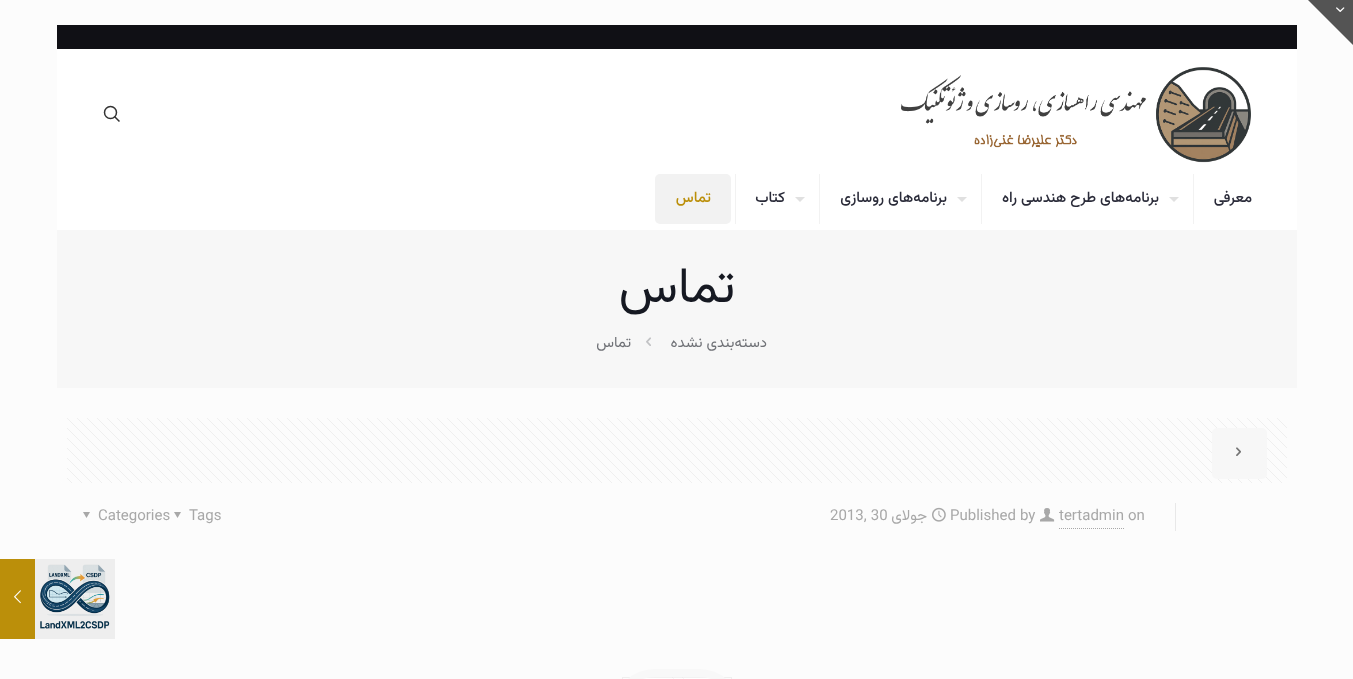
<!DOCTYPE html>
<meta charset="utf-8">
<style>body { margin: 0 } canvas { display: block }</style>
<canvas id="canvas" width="1353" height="679"></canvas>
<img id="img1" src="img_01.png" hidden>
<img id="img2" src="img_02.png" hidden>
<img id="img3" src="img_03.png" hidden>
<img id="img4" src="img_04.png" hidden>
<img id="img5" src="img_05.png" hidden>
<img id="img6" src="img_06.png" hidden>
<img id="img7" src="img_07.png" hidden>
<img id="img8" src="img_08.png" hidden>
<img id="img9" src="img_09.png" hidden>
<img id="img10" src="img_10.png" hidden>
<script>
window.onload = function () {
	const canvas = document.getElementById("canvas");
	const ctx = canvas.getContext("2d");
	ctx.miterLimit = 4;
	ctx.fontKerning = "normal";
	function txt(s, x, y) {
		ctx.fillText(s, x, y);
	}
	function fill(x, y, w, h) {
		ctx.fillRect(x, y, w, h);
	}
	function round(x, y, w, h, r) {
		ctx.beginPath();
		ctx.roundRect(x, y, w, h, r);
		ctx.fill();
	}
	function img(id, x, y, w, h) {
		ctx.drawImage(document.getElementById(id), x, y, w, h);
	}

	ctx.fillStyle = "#FCFCFC";
	fill(0, 0, 1353, 679);
	ctx.fillStyle = "#545454";
	ctx.beginPath();
	ctx.moveTo(1353, 0);
	ctx.lineTo(1353, 45);
	ctx.lineTo(1308, 0);
	ctx.closePath();
	ctx.fill();
	img("img1", 1336, 7, 9, 5);
	ctx.fillStyle = "#101015";
	fill(57, 25, 1240, 24);
	ctx.fillStyle = "#FFFFFF";
	fill(57, 49, 1240, 181);
	img("img2", 901, 67, 350, 96);
	ctx.beginPath();
	ctx.arc(110.5, 112.5, 6, 0, Math.PI * 2);
	ctx.strokeStyle = "#333333";
	ctx.lineWidth = 1.5;
	ctx.stroke();
	ctx.beginPath();
	ctx.moveTo(114.5, 116.5);
	ctx.lineTo(119.5, 121.5);
	ctx.stroke();
	ctx.fillStyle = "#F2F2F2";
	fill(1193, 174, 1, 50);
	ctx.fillStyle = "#E0E0E0";
	ctx.beginPath();
	ctx.moveTo(1169, 197);
	ctx.lineTo(1179, 197);
	ctx.lineTo(1174, 202);
	ctx.closePath();
	ctx.fill();
	ctx.fillStyle = "#F2F2F2";
	fill(981, 174, 1, 50);
	ctx.fillStyle = "#E0E0E0";
	ctx.beginPath();
	ctx.moveTo(957, 197);
	ctx.lineTo(967, 197);
	ctx.lineTo(962, 202);
	ctx.closePath();
	ctx.fill();
	ctx.fillStyle = "#F2F2F2";
	fill(819, 174, 1, 50);
	ctx.fillStyle = "#E0E0E0";
	ctx.beginPath();
	ctx.moveTo(795, 197);
	ctx.lineTo(805, 197);
	ctx.lineTo(800, 202);
	ctx.closePath();
	ctx.fill();
	ctx.fillStyle = "#F2F2F2";
	fill(735, 174, 1, 50);
	round(655, 174, 76, 50, 5);
	ctx.fillStyle = "#F7F7F7";
	fill(57, 230, 1240, 158);
	img("img3", 646, 337, 5, 9);
	img("img4", 67, 418, 1220, 65);
	round(1212, 428, 55, 51, 5);
	img("img5", 1236, 447, 5, 9);
	ctx.fillStyle = "#E8E8E8";
	fill(1175, 503, 1, 28);
	ctx.beginPath();
	ctx.moveTo(1059, 528.5);
	ctx.lineTo(1124, 528.5);
	ctx.strokeStyle = "#A8A8A8";
	ctx.lineWidth = 1;
	ctx.setLineDash([1, 1]);
	ctx.stroke();
	img("img6", 1040, 508, 15, 14);
	img("img7", 932, 507, 14, 15);
	ctx.fillStyle = "#A8A8A8";
	ctx.beginPath();
	ctx.moveTo(181, 512);
	ctx.lineTo(177.5, 518);
	ctx.lineTo(174, 512);
	ctx.closePath();
	ctx.fill();
	ctx.beginPath();
	ctx.moveTo(90, 512);
	ctx.lineTo(86.5, 518);
	ctx.lineTo(83, 512);
	ctx.closePath();
	ctx.fill();
	ctx.fillStyle = "#FFFFFF";
	round(622, 677, 110, 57, 55);
	img("img8", 672, 677, 12, 2);
	ctx.strokeStyle = "rgba(0, 0, 0, 0.05)";
	ctx.setLineDash([]);
	ctx.strokeRect(622.5, 677.5, 109, 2);
	ctx.beginPath();
	ctx.roundRect(618, 673, 118, 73, 59);
	ctx.strokeStyle = "#F8F8F8";
	ctx.lineWidth = 8;
	ctx.stroke();
	ctx.fillStyle = "#EEEEEE";
	fill(35, 559, 80, 80);
	img("img9", 40, 564, 70, 65);
	ctx.fillStyle = "#BB8F0A";
	fill(0, 559, 35, 80);
	img("img10", 14, 590, 7, 14);
	ctx.direction = "rtl";
	ctx.font = "500 15px Vazirmatn";
	ctx.fillStyle = "#2A2B39";
	txt("معرفی", 1252, 202);
	txt("برنامه‌های طرح هندسی راه", 1159, 202);
	txt("برنامه‌های روسازی", 947, 202);
	txt("کتاب", 785, 202);
	ctx.fillStyle = "#BB8F0A";
	txt("تماس", 711, 202);
	ctx.font = "50px Vazirmatn";
	ctx.fillStyle = "#161922";
	txt("تماس", 735, 302);
	ctx.font = "15px Vazirmatn";
	ctx.fillStyle = "#707277";
	txt("دسته‌بندی نشده", 767, 347);
	txt("تماس", 631, 347);
	ctx.direction = "ltr";
	ctx.fillStyle = "#A8A8A8";
	txt("tertadmin on", 1059, 520);
	txt("Published by", 950, 520);
	ctx.direction = "rtl";
	txt("جولای", 927, 520);
	ctx.direction = "ltr";
	txt("2013, 30", 830, 520);
	txt("Tags", 189, 520);
	txt("Categories", 98, 520);
};
</script>
